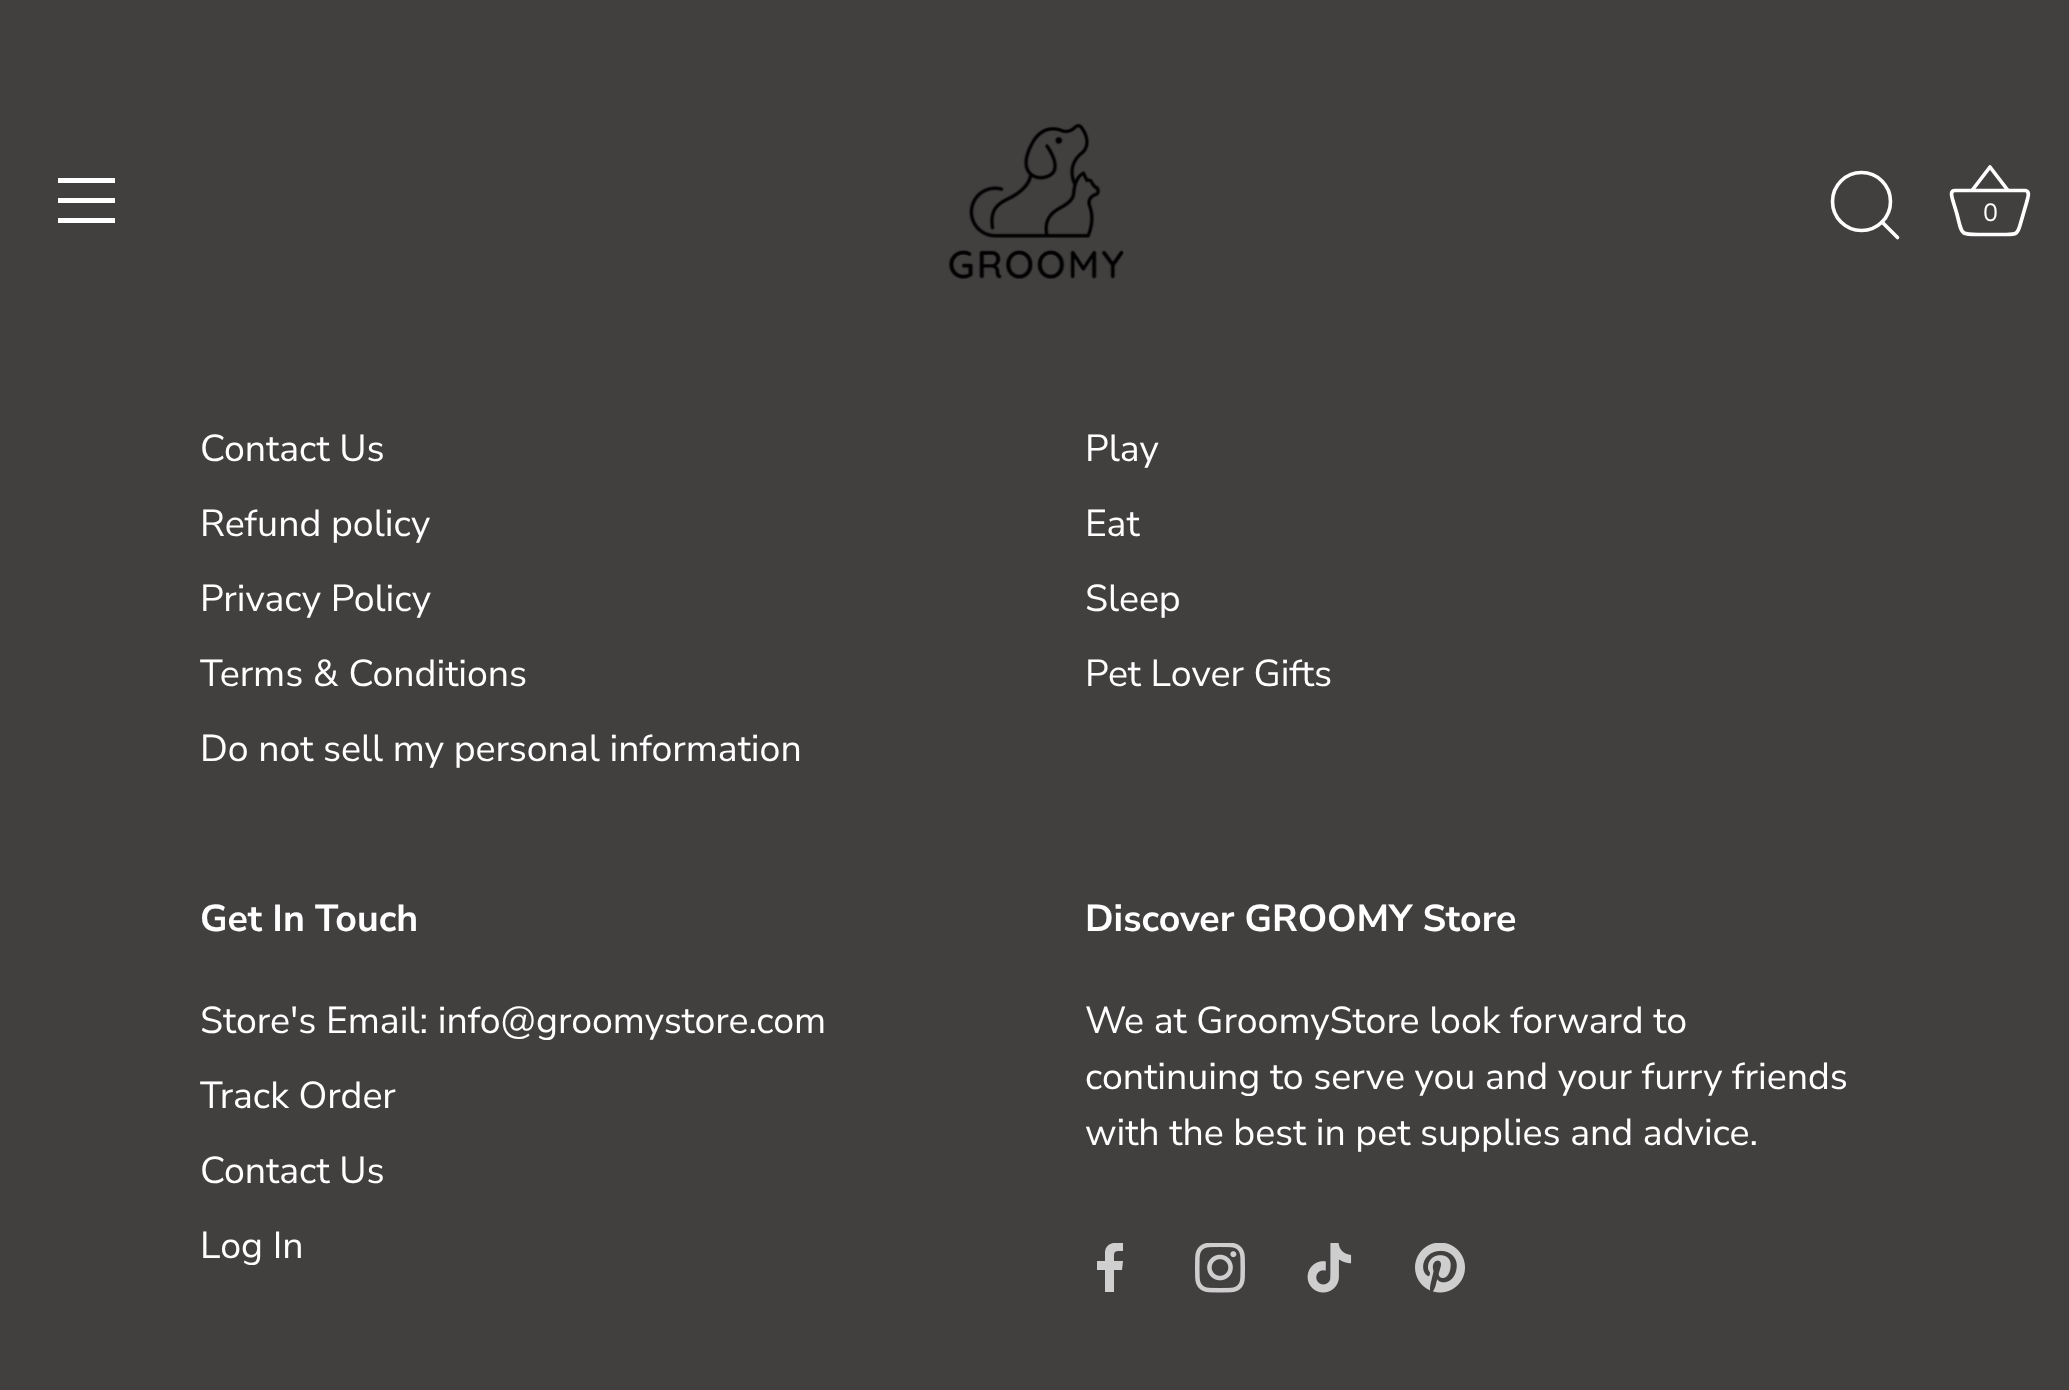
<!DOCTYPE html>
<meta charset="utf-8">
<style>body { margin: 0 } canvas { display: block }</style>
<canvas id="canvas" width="2069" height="1390"></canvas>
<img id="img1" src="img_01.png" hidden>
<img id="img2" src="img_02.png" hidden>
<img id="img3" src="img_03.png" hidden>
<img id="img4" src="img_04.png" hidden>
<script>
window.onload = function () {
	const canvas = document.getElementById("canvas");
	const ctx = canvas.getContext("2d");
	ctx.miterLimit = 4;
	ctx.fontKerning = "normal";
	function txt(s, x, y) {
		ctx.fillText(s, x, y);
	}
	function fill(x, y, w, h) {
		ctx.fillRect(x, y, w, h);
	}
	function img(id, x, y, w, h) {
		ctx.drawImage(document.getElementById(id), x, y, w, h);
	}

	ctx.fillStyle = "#423F3F";
	fill(0, 0, 2069, 1390);
	ctx.fillStyle = "#FFFFFF";
	fill(58, 178, 57, 5);
	fill(58, 198, 57, 5);
	fill(58, 218, 57, 5);
	img("img1", 948, 123, 176, 156);
	ctx.beginPath();
	ctx.arc(1861.5, 201.5, 29, 0, Math.PI * 2);
	ctx.strokeStyle = "#FFFFFF";
	ctx.lineWidth = 3.6;
	ctx.stroke();
	ctx.beginPath();
	ctx.moveTo(1897.5, 237.5);
	ctx.lineTo(1882, 222);
	ctx.lineCap = "round";
	ctx.lineJoin = "round";
	ctx.stroke();
	ctx.beginPath();
	ctx.moveTo(1955, 190.5);
	ctx.bezierCurveTo(1949, 190.5, 1952.5, 198.5, 1953, 201);
	ctx.lineTo(1956.5, 212.5);
	ctx.bezierCurveTo(1963, 236, 1958.5, 234.5, 1983, 234.5);
	ctx.lineTo(2004.5, 234.5);
	ctx.bezierCurveTo(2016, 234.5, 2017.5, 235, 2020.5, 223.5);
	ctx.lineTo(2027, 201);
	ctx.bezierCurveTo(2027.5, 198.5, 2030.5, 191.5, 2025.5, 190.5);
	ctx.lineTo(1955, 190.5);
	ctx.lineWidth = 3.7;
	ctx.lineCap = "butt";
	ctx.stroke();
	ctx.beginPath();
	ctx.moveTo(1972, 190.5);
	ctx.lineTo(1990, 167);
	ctx.lineTo(2008, 190.5);
	ctx.stroke();
	ctx.save();
	ctx.beginPath();
	ctx.rect(1085, 1243, 50, 50);
	ctx.clip();
	ctx.fillStyle = "#D0CFCF";
	ctx.beginPath();
	ctx.moveTo(1114, 1292);
	ctx.lineTo(1114, 1270);
	ctx.lineTo(1122, 1270);
	ctx.lineTo(1123, 1261);
	ctx.lineTo(1114, 1261);
	ctx.bezierCurveTo(1114, 1251, 1113, 1251, 1123, 1251);
	ctx.lineTo(1123, 1243);
	ctx.bezierCurveTo(1116, 1242, 1106, 1242, 1105, 1252);
	ctx.lineTo(1105, 1261);
	ctx.lineTo(1097, 1261);
	ctx.lineTo(1097, 1270);
	ctx.lineTo(1105, 1270);
	ctx.lineTo(1105, 1292);
	ctx.closePath();
	ctx.fill();
	ctx.restore();
	img("img2", 1195, 1243, 50, 50);
	img("img3", 1307, 1243, 45, 50);
	img("img4", 1415, 1243, 50, 50);
	ctx.font = "25px Nunito Sans";
	txt("0", 1983, 221);
	ctx.font = "37.5px Nunito Sans";
	txt("Contact Us", 200, 461);
	txt("Refund policy", 200, 536);
	txt("Privacy Policy", 200, 611);
	txt("Terms & Conditions", 200, 686);
	txt("Do not sell my personal information", 200, 761);
	txt("Play", 1085, 461);
	txt("Eat", 1085, 536);
	txt("Sleep", 1085, 611);
	txt("Pet Lover Gifts", 1085, 686);
	ctx.font = "bold 37.5px Nunito Sans";
	txt("Get In Touch", 200, 931);
	ctx.font = "37.5px Nunito Sans";
	txt("Store's Email: info@groomystore.com", 200, 1033);
	txt("Track Order", 200, 1108);
	txt("Contact Us", 200, 1183);
	txt("Log In", 200, 1258);
	ctx.font = "bold 37.5px Nunito Sans";
	txt("Discover GROOMY Store", 1085, 931);
	ctx.font = "37.5px Nunito Sans";
	txt("We at GroomyStore look forward to", 1085, 1033);
	txt("continuing to serve you and your furry friends", 1085, 1089);
	txt("with the best in pet supplies and advice.", 1085, 1145);
};
</script>
